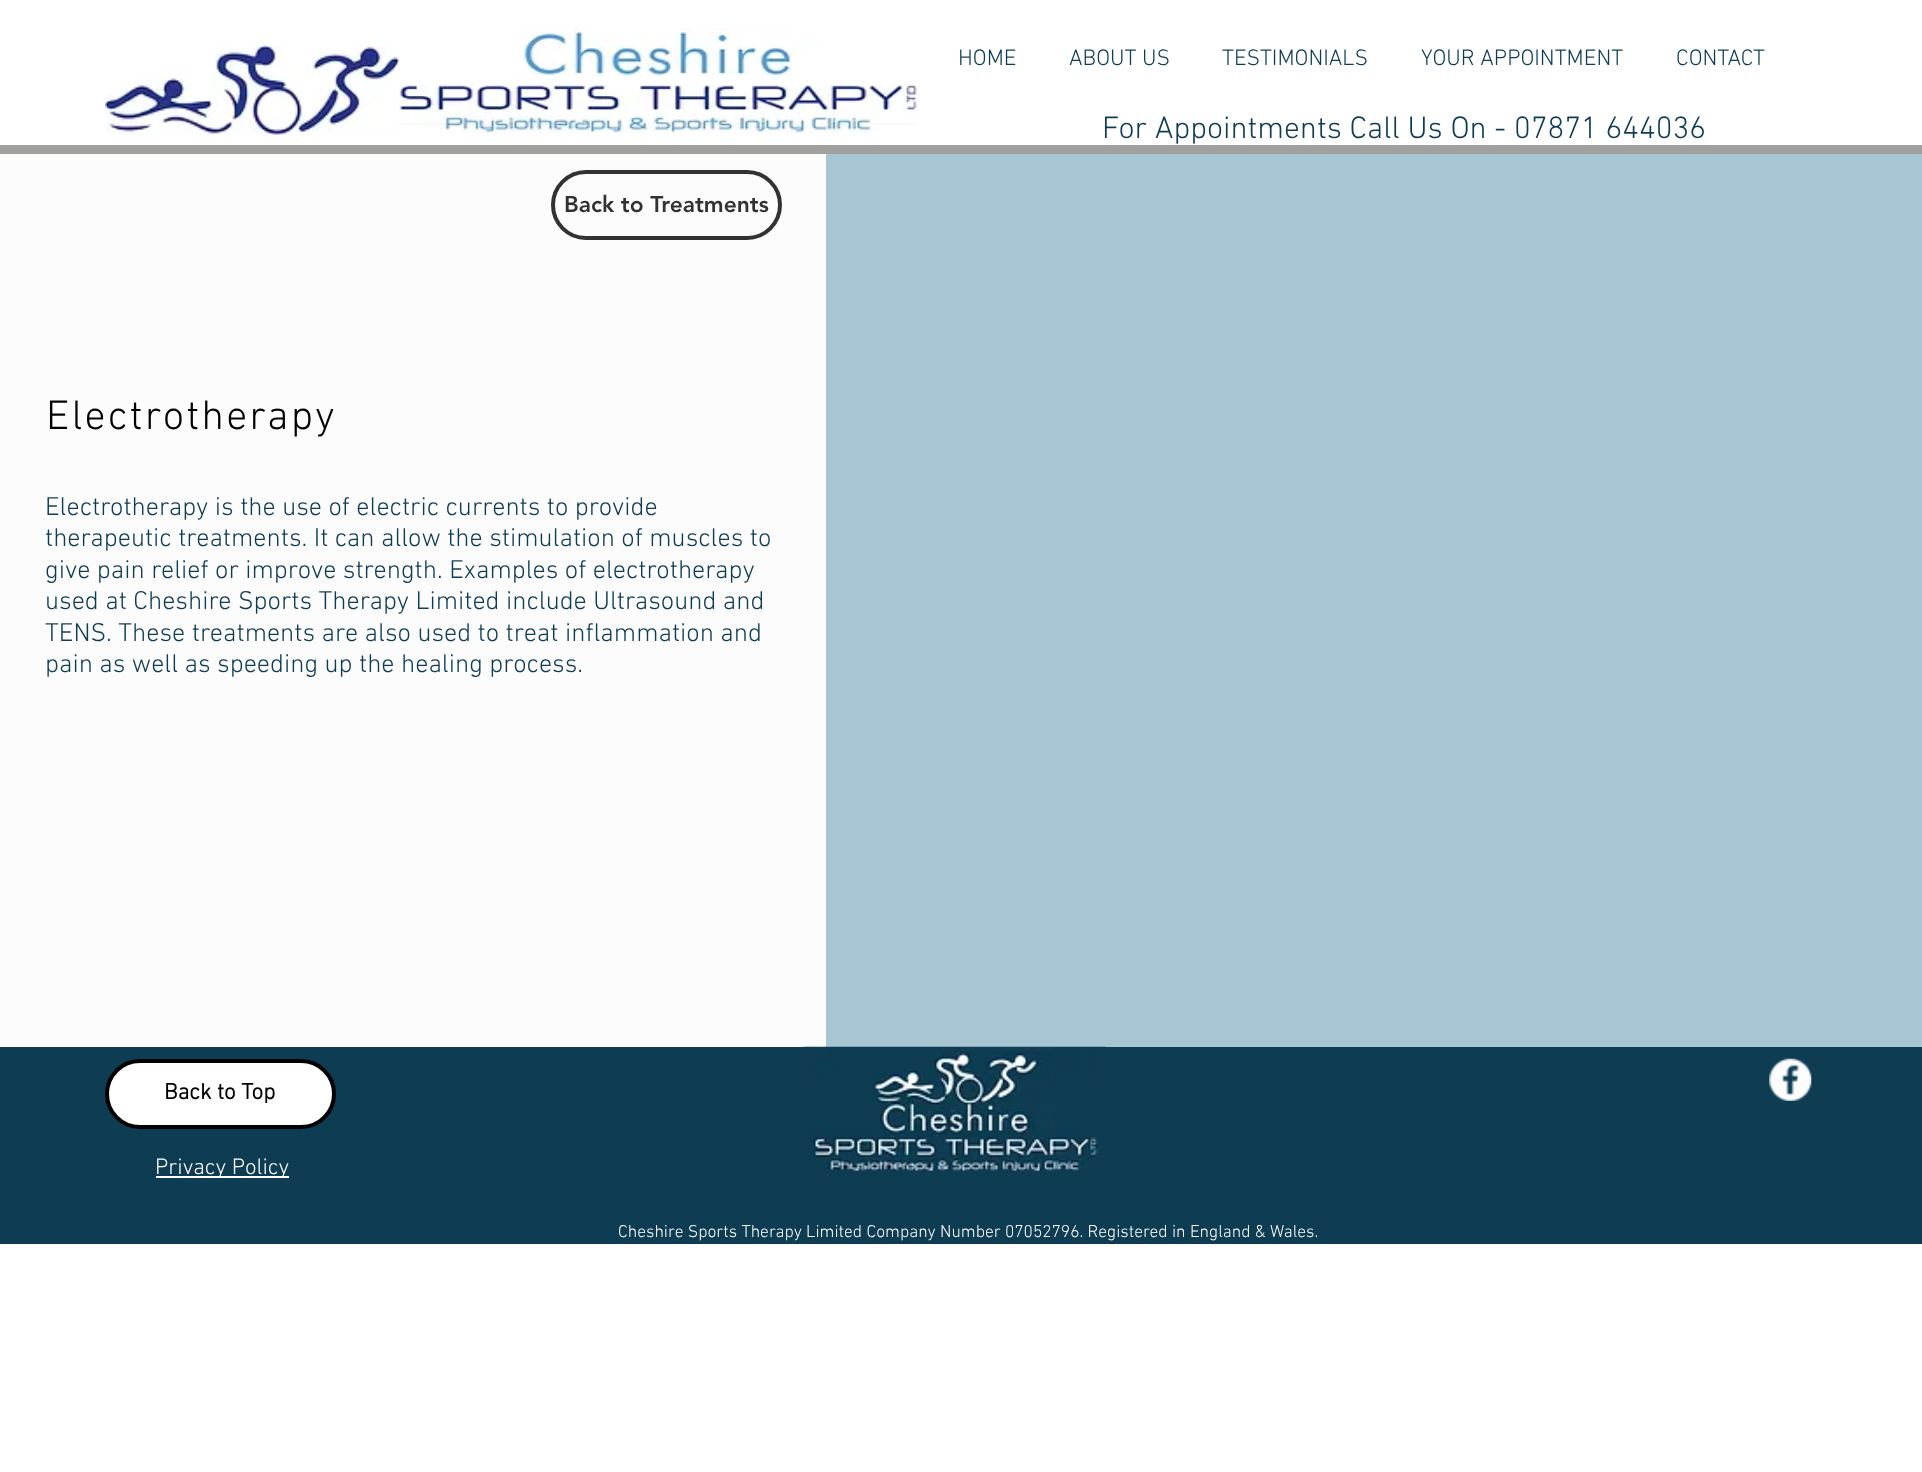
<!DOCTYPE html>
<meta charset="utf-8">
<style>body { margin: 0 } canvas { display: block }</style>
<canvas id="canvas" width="1922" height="1472"></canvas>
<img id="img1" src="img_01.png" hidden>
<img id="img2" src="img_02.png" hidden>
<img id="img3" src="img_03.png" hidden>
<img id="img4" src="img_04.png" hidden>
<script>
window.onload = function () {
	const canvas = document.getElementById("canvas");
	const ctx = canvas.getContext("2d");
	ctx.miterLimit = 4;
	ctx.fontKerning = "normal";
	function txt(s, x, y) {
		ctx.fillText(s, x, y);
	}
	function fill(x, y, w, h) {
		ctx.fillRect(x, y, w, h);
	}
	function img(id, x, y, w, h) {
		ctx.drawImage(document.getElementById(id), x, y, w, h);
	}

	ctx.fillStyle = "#FFFFFF";
	fill(0, 0, 1922, 1472);
	img("img1", 105, 45, 294, 90);
	img("img2", 399, 28, 518, 106);
	ctx.fillStyle = "#A0A09F";
	fill(0, 145, 1922, 9);
	ctx.fillStyle = "#FCFCFC";
	fill(0, 154, 826, 893);
	ctx.beginPath();
	ctx.roundRect(553, 172, 227, 66, 33);
	ctx.strokeStyle = "#323232";
	ctx.lineWidth = 4;
	ctx.stroke();
	ctx.fillStyle = "#A8C5D4";
	fill(826, 154, 1096, 893);
	ctx.fillStyle = "#0E3C53";
	fill(0, 1047, 1922, 197);
	ctx.fillStyle = "#FFFFFF";
	ctx.beginPath();
	ctx.roundRect(107, 1061, 227, 66, 33);
	ctx.fill();
	ctx.strokeStyle = "#000000";
	ctx.stroke();
	img("img3", 803, 1046, 303, 125);
	img("img4", 1769, 1058, 43, 43);
	fill(156, 1176, 133, 2);
	ctx.font = "300 22.75px 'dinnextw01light'";
	ctx.fillStyle = "#0E3C53";
	txt("HOME", 958, 65);
	txt("ABOUT US", 1069, 65);
	txt("TESTIMONIALS", 1222, 65);
	txt("YOUR APPOINTMENT", 1421, 65);
	txt("CONTACT", 1676, 65);
	ctx.font = "300 31.5px 'dinnextw01light'";
	txt("For Appointments Call Us On - 07871 644036", 1102, 138);
	ctx.font = "900 22.75px 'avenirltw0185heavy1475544'";
	ctx.fillStyle = "#323232";
	txt("Back to Treatments", 564, 212);
	ctx.letterSpacing = "2.1px";
	ctx.font = "300 42px 'dinnextw01light'";
	ctx.fillStyle = "#000000";
	txt("Electrotherapy", 46, 429);
	ctx.letterSpacing = "0px";
	ctx.font = "300 26.25px 'dinnextw01light'";
	ctx.fillStyle = "#0E3C53";
	txt("Electrotherapy is the use of electric currents to provide", 45, 515);
	txt("therapeutic treatments. It can allow the stimulation of muscles to", 45, 546);
	txt("give pain relief or improve strength. Examples of electrotherapy", 45, 578);
	txt("used at Cheshire Sports Therapy Limited include Ultrasound and", 45, 609);
	txt("TENS. These treatments are also used to treat inflammation and", 45, 641);
	txt("pain as well as speeding up the healing process.", 45, 672);
	ctx.font = "bold 22.75px 'dinnextw01light'";
	ctx.fillStyle = "#000000";
	txt("Back to Top", 164, 1099);
	ctx.font = "300 22.75px 'dinnextw01light'";
	ctx.fillStyle = "#FFFFFF";
	txt("Privacy Policy", 155, 1174);
	ctx.font = "300 17.5px 'dinnextw01light'";
	txt("Cheshire Sports Therapy Limited Company Number 07052796. Registered in England & Wales.", 618, 1237);
};
</script>
